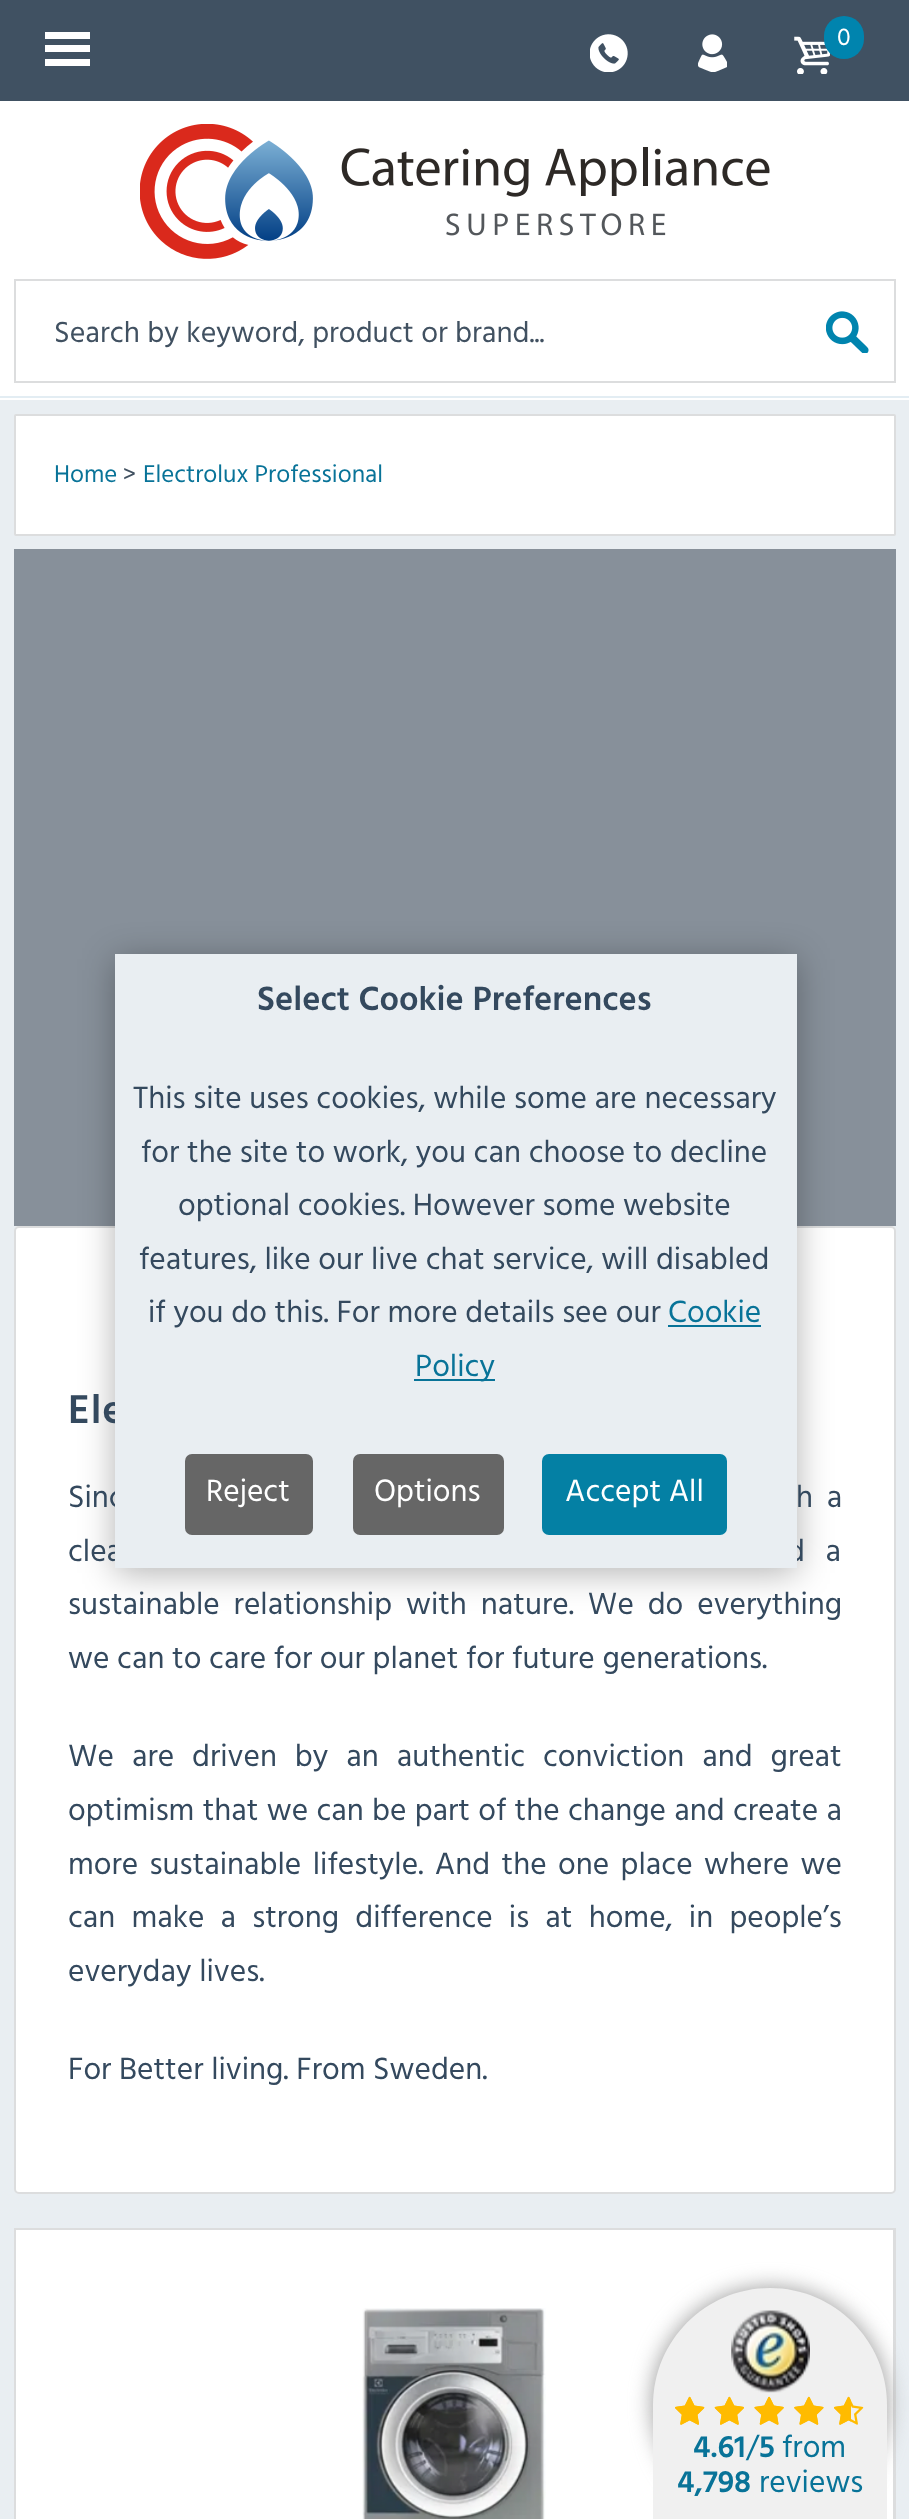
<!DOCTYPE html>
<meta charset="utf-8">
<style>body { margin: 0 } canvas { display: block }</style>
<canvas id="canvas" width="909" height="2519"></canvas>
<img id="img1" src="img_01.png" hidden>
<img id="img2" src="img_02.png" hidden>
<img id="img3" src="img_03.png" hidden>
<img id="img4" src="img_04.png" hidden>
<img id="img5" src="img_05.png" hidden>
<img id="img6" src="img_06.png" hidden>
<img id="img7" src="img_07.png" hidden>
<img id="img8" src="img_08.png" hidden>
<img id="img9" src="img_09.png" hidden>
<script>
window.onload = function () {
	const canvas = document.getElementById("canvas");
	const ctx = canvas.getContext("2d");
	ctx.miterLimit = 4;
	ctx.fontKerning = "normal";
	function txt(s, x, y) {
		ctx.fillText(s, x, y);
	}
	function fill(x, y, w, h) {
		ctx.fillRect(x, y, w, h);
	}
	function round(x, y, w, h, r) {
		ctx.beginPath();
		ctx.roundRect(x, y, w, h, r);
		ctx.fill();
	}
	function img(id, x, y, w, h) {
		ctx.drawImage(document.getElementById(id), x, y, w, h);
	}

	ctx.fillStyle = "#FFFFFF";
	fill(0, 0, 909, 2519);
	ctx.fillStyle = "#405162";
	fill(0, 0, 909, 101);
	ctx.fillStyle = "#FFFFFF";
	fill(45, 32, 45, 7);
	fill(45, 45, 45, 7);
	fill(45, 59, 45, 7);
	img("img1", 590, 34, 38, 38);
	img("img2", 698, 34, 29, 38);
	img("img3", 794, 36, 36, 38);
	ctx.fillStyle = "#0084AE";
	round(824, 16, 40, 43, 20);
	ctx.fillStyle = "#E3EDF3";
	fill(0, 396, 909, 2);
	img("img4", 140, 124, 630, 135);
	ctx.strokeStyle = "#DCDDDE";
	ctx.lineWidth = 2;
	ctx.strokeRect(15, 280, 880, 102);
	img("img5", 826, 311, 43, 42);
	ctx.fillStyle = "#E9EEF2";
	fill(0, 400, 909, 2119);
	ctx.fillStyle = "#FFFFFF";
	ctx.beginPath();
	ctx.roundRect(15, 415, 880, 120, 1);
	ctx.fill();
	ctx.stroke();
	ctx.fillStyle = "#87909A";
	fill(14, 549, 882, 677);
	ctx.fillStyle = "#FFFFFF";
	ctx.beginPath();
	ctx.roundRect(15, 1227, 880, 966, 4);
	ctx.fill();
	ctx.stroke();
	fill(16, 2230, 877, 289);
	ctx.fillStyle = "#DCDDDE";
	fill(14, 2228, 882, 2);
	ctx.beginPath();
	ctx.moveTo(896, 2228);
	ctx.lineTo(896, 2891);
	ctx.lineTo(893, 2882);
	ctx.lineTo(893, 2230);
	ctx.closePath();
	ctx.fill();
	ctx.beginPath();
	ctx.moveTo(14, 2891);
	ctx.lineTo(14, 2228);
	ctx.lineTo(16, 2230);
	ctx.lineTo(16, 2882);
	ctx.closePath();
	ctx.fill();
	img("img6", 362, 2308, 184, 211);
	ctx.fillStyle = "rgba(0, 0, 0, 0.3)";
	ctx.filter = "blur(17px)";
	ctx.beginPath();
	ctx.rect(115, 959, 682, 614);
	ctx.fill();
	ctx.filter = "none";
	ctx.fillStyle = "#999999";
	ctx.filter = "blur(11px)";
	ctx.beginPath();
	ctx.roundRect(653, 2288, 234, 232, 116);
	ctx.fill();
	ctx.filter = "none";
	ctx.fillStyle = "#F0F0F0";
	ctx.beginPath();
	ctx.moveTo(770, 2288);
	ctx.bezierCurveTo(834.5, 2288, 887, 2340.5, 887, 2405);
	ctx.lineTo(887, 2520);
	ctx.lineTo(653, 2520);
	ctx.lineTo(653, 2405);
	ctx.bezierCurveTo(653, 2340.5, 705.5, 2288, 770, 2288);
	ctx.closePath();
	ctx.fill();
	img("img7", 731, 2310, 79, 83);
	img("img8", 675, 2396, 189, 29);
	img("img9", 675, 2396, 176, 29);
	ctx.font = "25px Hind Vadodara";
	ctx.fillStyle = "#FFFFFF";
	txt("0", 837, 45);
	ctx.font = "29.9px Hind Vadodara";
	ctx.fillStyle = "#415161";
	txt("Search by keyword, product or brand...", 54, 342);
	ctx.font = "24.9px Hind Vadodara";
	ctx.fillStyle = "#087398";
	txt("Home", 54, 482);
	ctx.fillStyle = "#415161";
	txt(">", 123, 482);
	ctx.fillStyle = "#087398";
	txt("Electrolux Professional", 143, 482);
	ctx.letterSpacing = "1px";
	ctx.font = "600 41px Hind Vadodara";
	ctx.fillStyle = "#34495E";
	txt("Ele", 68, 1423);
	ctx.letterSpacing = "0px";
	ctx.wordSpacing = "6px";
	ctx.font = "31.5px Hind Vadodara";
	txt("Sinc", 68, 1507);
	txt("h a", 796, 1507);
	ctx.wordSpacing = "13px";
	txt("clea", 68, 1561);
	txt("d a", 787, 1561);
	ctx.wordSpacing = "6.25px";
	txt("sustainable relationship with nature. We do everything", 68, 1614);
	ctx.wordSpacing = "0px";
	txt("we can to care for our planet for future generations.", 68, 1668);
	ctx.wordSpacing = "10.25px";
	txt("We are driven by an authentic conviction and great", 68, 1766);
	ctx.wordSpacing = "0.6px";
	txt("optimism that we can be part of the change and create a", 68, 1820);
	ctx.wordSpacing = "3.75px";
	txt("more sustainable lifestyle. And the one place where we", 68, 1874);
	ctx.wordSpacing = "8.5px";
	txt("can make a strong difference is at home, in people’s", 68, 1927);
	ctx.wordSpacing = "0px";
	txt("everyday lives.", 68, 1981);
	txt("For Better living. From Sweden.", 68, 2079);
	ctx.fillStyle = "#E9EEF2";
	fill(115, 954, 682, 614);
	ctx.font = "600 34.6px Hind Vadodara";
	ctx.fillStyle = "#34495E";
	txt("Select Cookie Preferences", 257, 1010);
	ctx.font = "31.5px Hind Vadodara";
	txt("This site uses cookies, while some are necessary", 133, 1108);
	txt("for the site to work, you can choose to decline", 141, 1162);
	txt("optional cookies. However some website", 178, 1215);
	txt("features, like our live chat service, will disabled", 139, 1269);
	txt("if you do this. For more details see our", 148, 1322);
	ctx.fillStyle = "#087398";
	txt("Cookie", 668, 1322);
	fill(668, 1325, 93, 2);
	fill(414, 1379, 81, 2);
	txt("Policy", 415, 1376);
	ctx.fillStyle = "#666666";
	round(185, 1454, 128, 81, 7);
	ctx.fillStyle = "#FFFFFF";
	txt("Reject", 206, 1501);
	ctx.fillStyle = "#666666";
	round(353, 1454, 151, 81, 7);
	ctx.fillStyle = "#FFFFFF";
	txt("Options", 374, 1501);
	ctx.fillStyle = "#0480A4";
	round(542, 1454, 185, 81, 7);
	ctx.fillStyle = "#FFFFFF";
	txt("Accept All", 565, 1501);
	ctx.font = "600 31.5px Hind Vadodara";
	ctx.fillStyle = "#087398";
	txt("4.61", 693, 2457);
	ctx.font = "31.5px Hind Vadodara";
	txt("/", 746, 2457);
	ctx.font = "600 31.5px Hind Vadodara";
	txt("5", 759, 2457);
	ctx.font = "31.5px Hind Vadodara";
	txt("from", 782, 2457);
	ctx.font = "600 31.5px Hind Vadodara";
	txt("4,798", 677, 2492);
	ctx.font = "31.5px Hind Vadodara";
	txt("reviews", 759, 2492);
};
</script>
